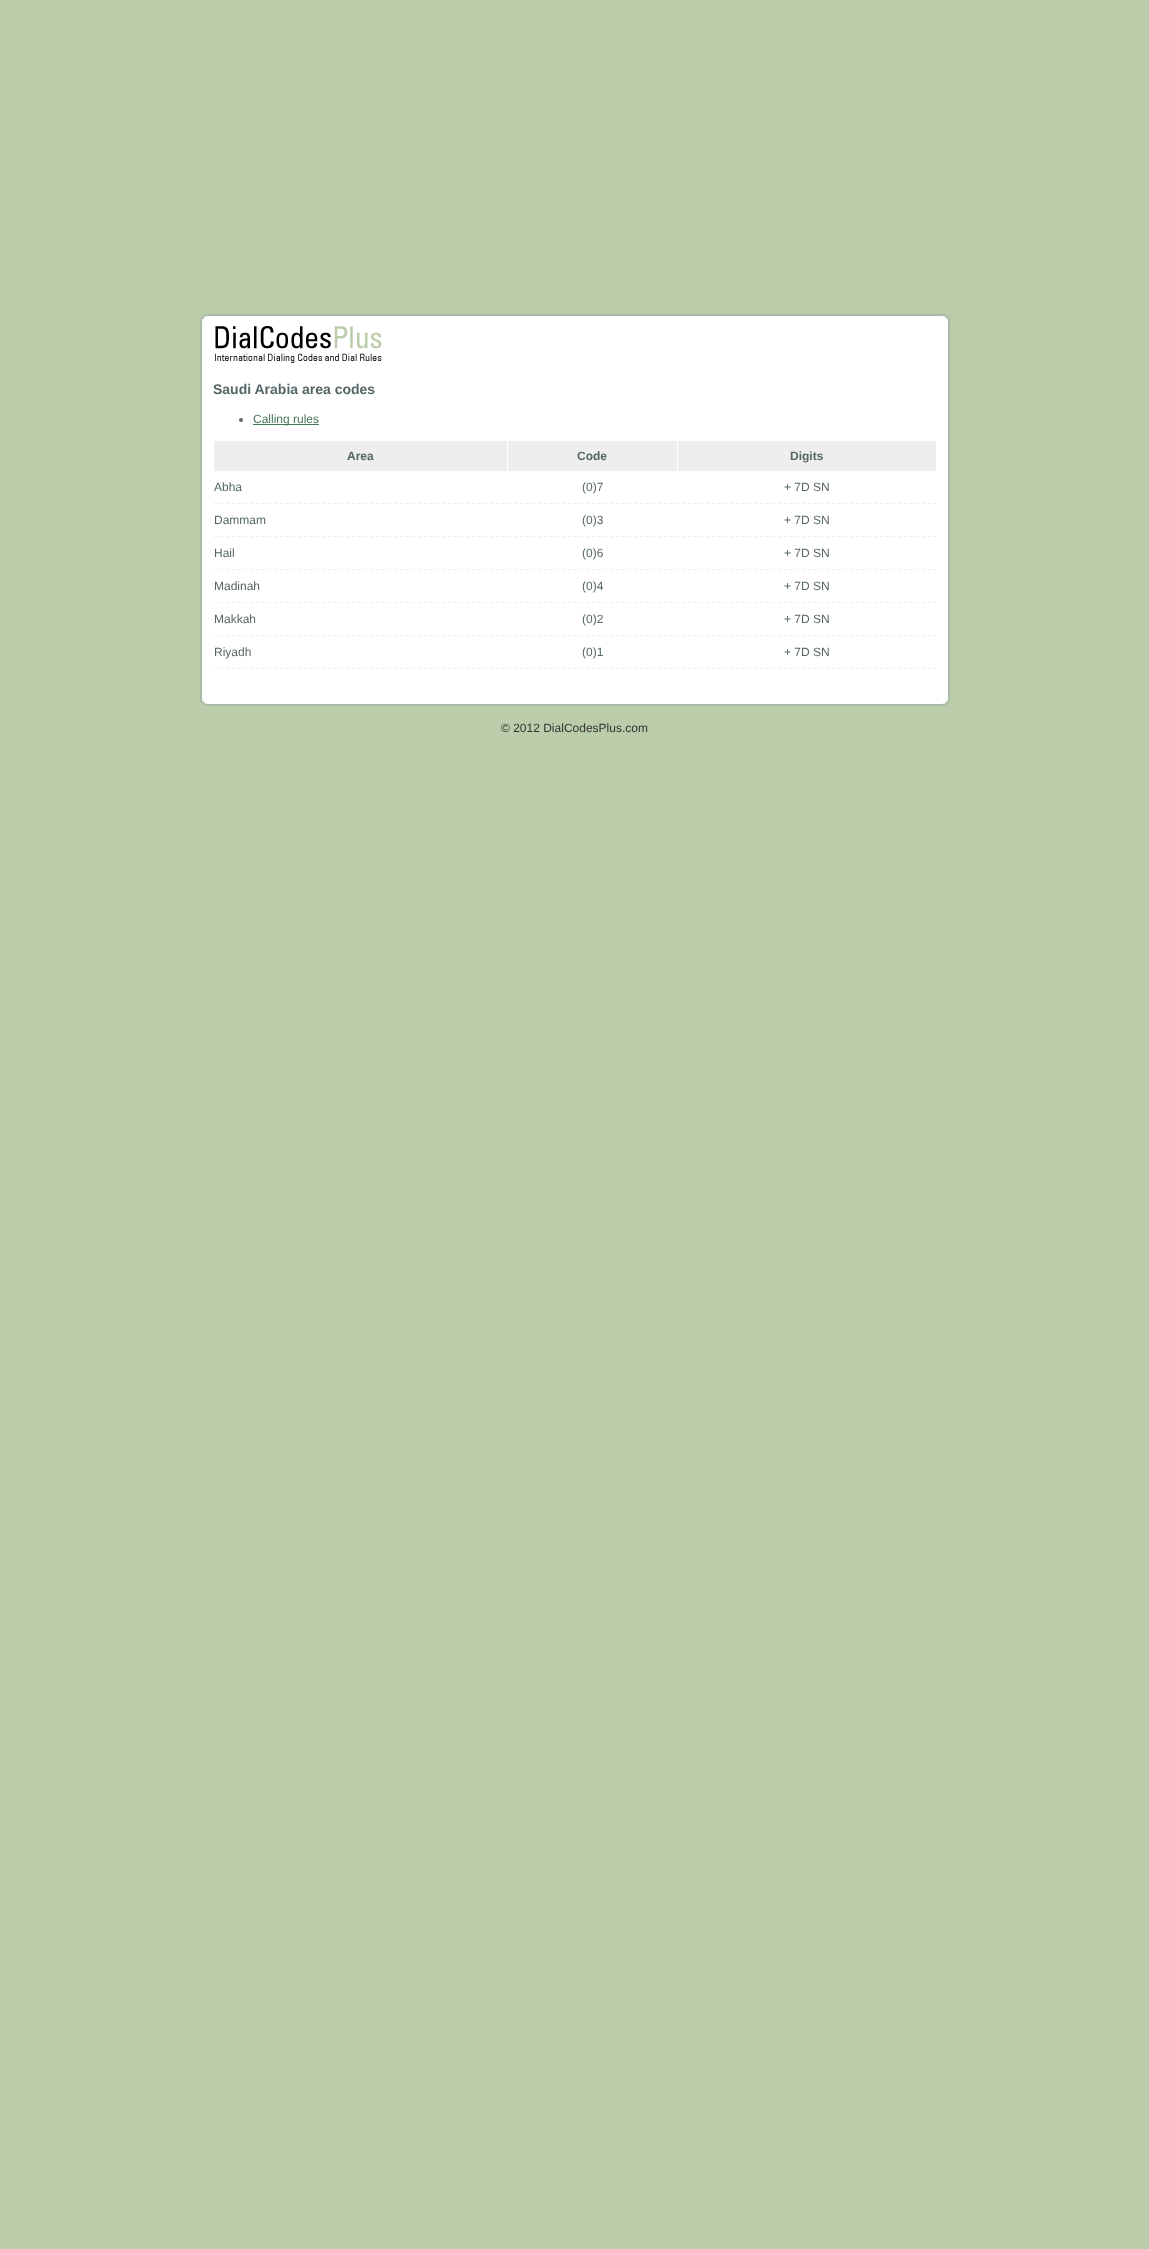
<!DOCTYPE html>
<meta charset="utf-8">
<style>body { margin: 0 } canvas { display: block }</style>
<canvas id="canvas" width="1149" height="2249"></canvas>
<img id="img1" src="img_01.png" hidden>
<img id="img2" src="img_02.png" hidden>
<img id="img3" src="img_03.png" hidden>
<img id="img4" src="img_04.png" hidden>
<img id="img5" src="img_05.png" hidden>
<script>
window.onload = function () {
	const canvas = document.getElementById("canvas");
	const ctx = canvas.getContext("2d");
	ctx.miterLimit = 4;
	ctx.fontKerning = "normal";
	function txt(s, x, y) {
		ctx.fillText(s, x, y);
	}
	function fill(x, y, w, h) {
		ctx.fillRect(x, y, w, h);
	}
	function img(id, x, y, w, h) {
		ctx.drawImage(document.getElementById(id), x, y, w, h);
	}

	ctx.fillStyle = "#BBCCAA";
	fill(0, 0, 1149, 2249);
	ctx.fillStyle = "#FFFFFF";
	fill(202, 316, 746, 388);
	img("img1", 200, 314, 750, 30);
	img("img2", 200, 676, 750, 30);
	img("img3", 200, 344, 750, 332);
	img("img4", 215, 326, 167, 37);
	ctx.fillStyle = "#666666";
	ctx.beginPath();
	ctx.arc(241, 420, 2, 0, Math.PI * 2);
	ctx.fill();
	ctx.fillStyle = "#447755";
	fill(253, 424, 66, 1);
	ctx.fillStyle = "#EEEEEE";
	fill(214, 441, 293, 30);
	fill(508, 441, 169, 30);
	fill(678, 441, 258, 30);
	img("img5", 214, 503, 722, 1);
	img("img5", 214, 536, 722, 1);
	img("img5", 214, 569, 722, 1);
	img("img5", 214, 602, 722, 1);
	img("img5", 214, 635, 722, 1);
	img("img5", 214, 668, 722, 1);
	ctx.font = "bold 14px Liberation Sans";
	ctx.fillStyle = "#556666";
	txt("Saudi Arabia area codes", 213, 394);
	ctx.font = "12px Liberation Sans";
	ctx.fillStyle = "#447755";
	txt("Calling rules", 253, 423);
	ctx.font = "bold 12px Liberation Sans";
	ctx.fillStyle = "#556666";
	txt("Area", 347, 460);
	txt("Code", 577, 460);
	txt("Digits", 790, 460);
	ctx.font = "12px Liberation Sans";
	txt("Abha", 214, 491);
	txt("(0)7", 582, 491);
	txt("+ 7D SN", 784, 491);
	txt("Dammam", 214, 524);
	txt("(0)3", 582, 524);
	txt("+ 7D SN", 784, 524);
	txt("Hail", 214, 557);
	txt("(0)6", 582, 557);
	txt("+ 7D SN", 784, 557);
	txt("Madinah", 214, 590);
	txt("(0)4", 582, 590);
	txt("+ 7D SN", 784, 590);
	txt("Makkah", 214, 623);
	txt("(0)2", 582, 623);
	txt("+ 7D SN", 784, 623);
	txt("Riyadh", 214, 656);
	txt("(0)1", 582, 656);
	txt("+ 7D SN", 784, 656);
	ctx.fillStyle = "#333333";
	txt("© 2012 DialCodesPlus.com", 501, 732);
};
</script>
